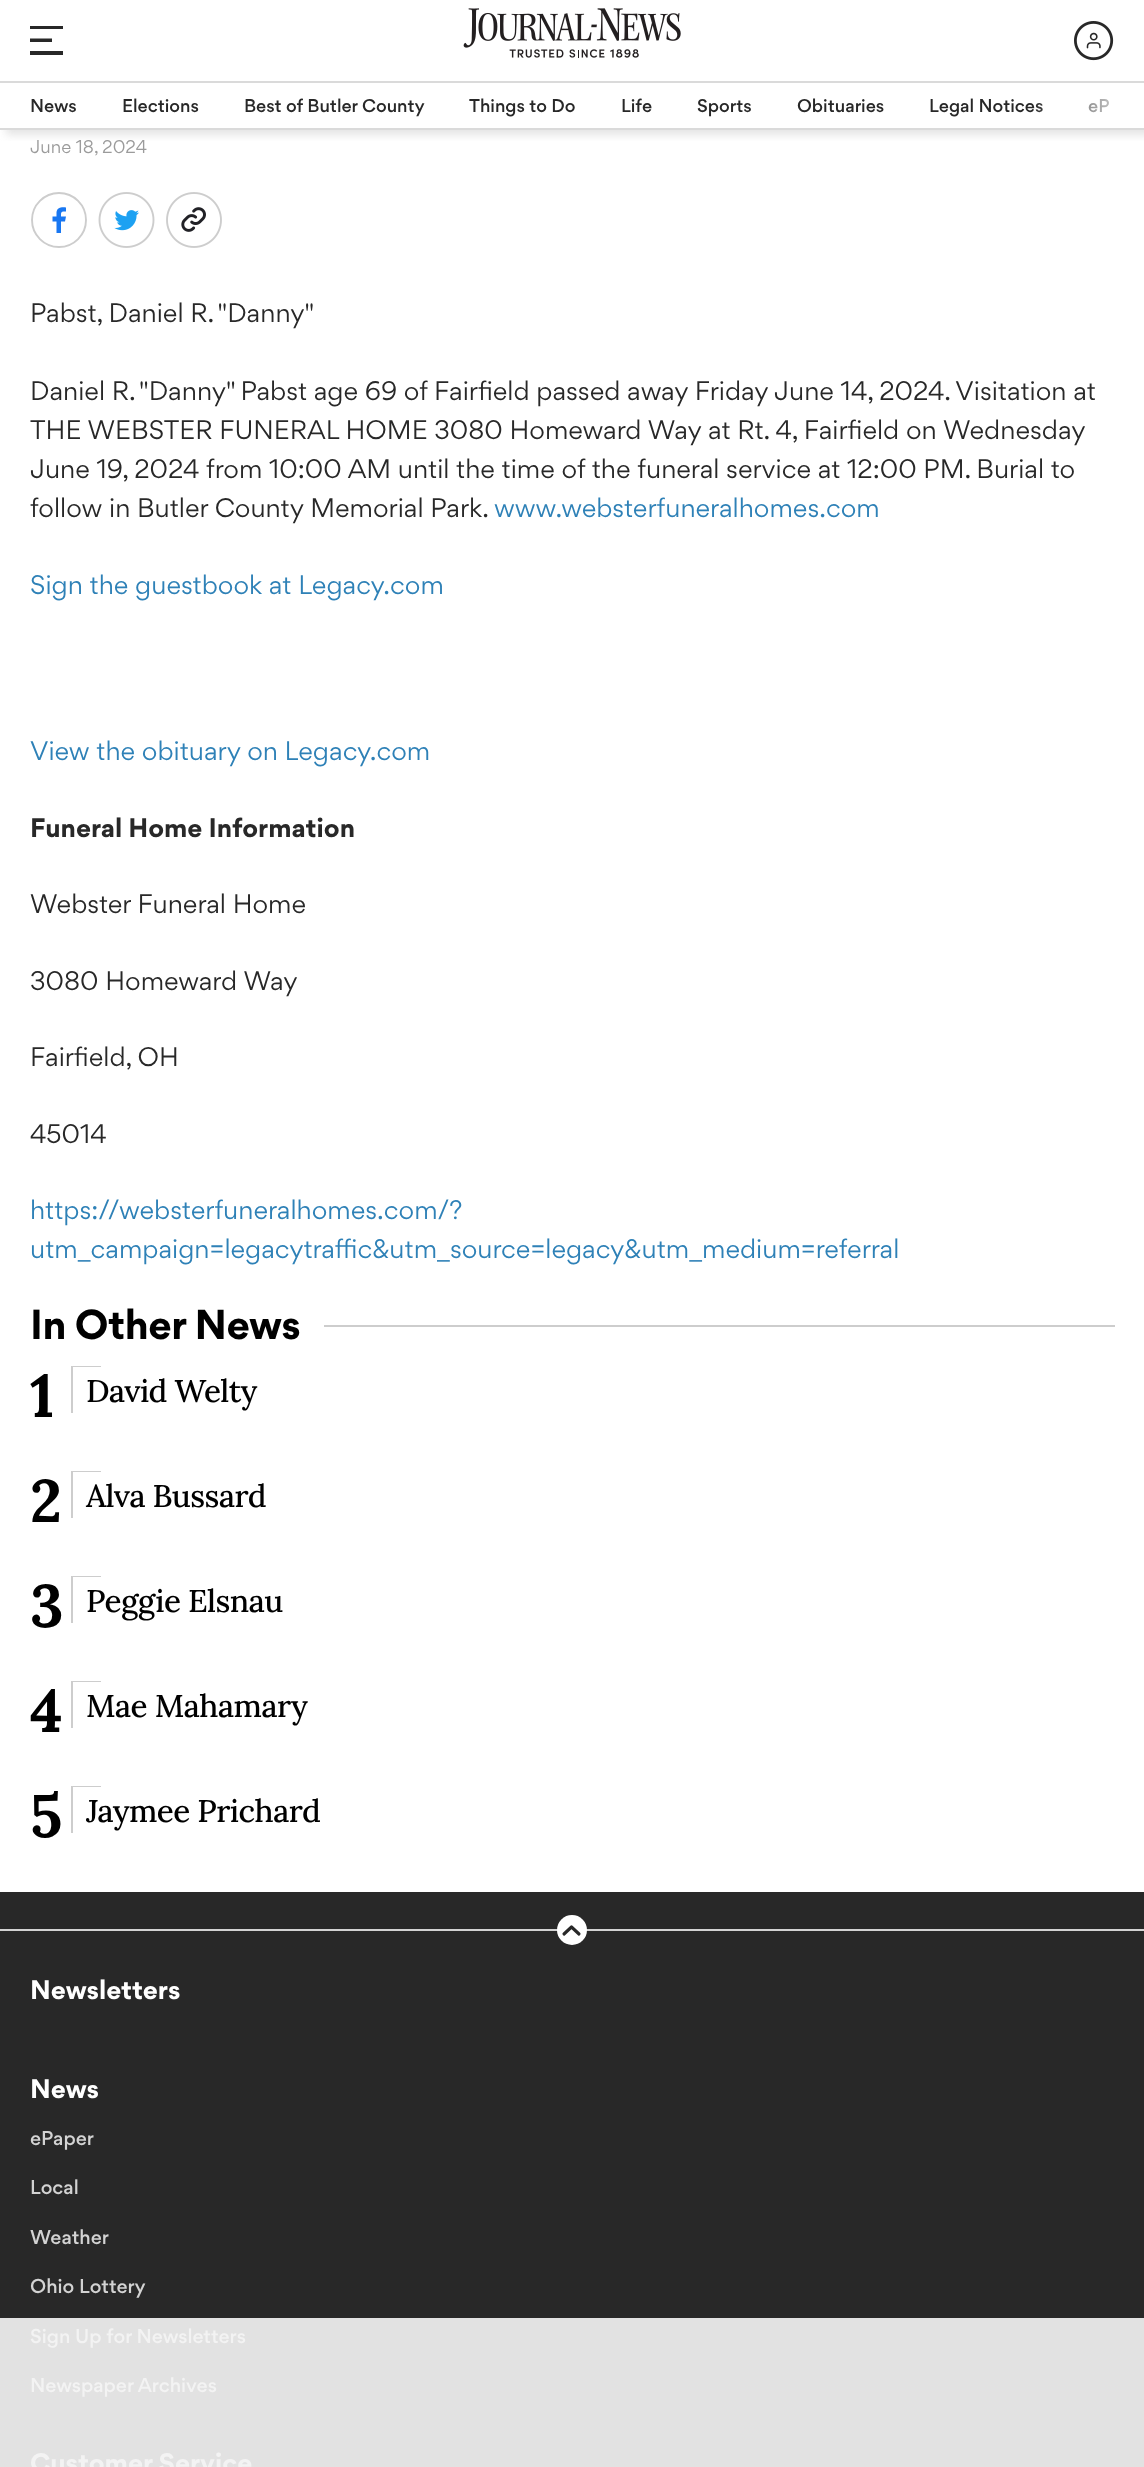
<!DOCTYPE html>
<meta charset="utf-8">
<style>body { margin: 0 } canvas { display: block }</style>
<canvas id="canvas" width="1144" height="2467"></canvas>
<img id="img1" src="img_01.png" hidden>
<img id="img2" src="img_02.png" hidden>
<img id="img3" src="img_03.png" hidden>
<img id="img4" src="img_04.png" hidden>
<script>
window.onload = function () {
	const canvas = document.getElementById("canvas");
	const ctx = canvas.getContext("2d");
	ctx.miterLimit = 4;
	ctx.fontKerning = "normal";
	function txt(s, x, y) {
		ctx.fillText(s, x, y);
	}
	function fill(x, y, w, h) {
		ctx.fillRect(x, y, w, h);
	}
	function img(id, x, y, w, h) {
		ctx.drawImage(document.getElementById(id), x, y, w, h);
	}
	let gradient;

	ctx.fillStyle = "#FFFFFF";
	fill(0, 0, 1144, 2467);
	ctx.save();
	ctx.beginPath();
	ctx.rect(30, 26, 33, 30);
	ctx.clip();
	ctx.fillStyle = "#282828";
	ctx.beginPath();
	ctx.moveTo(30, 25.5);
	ctx.lineTo(63, 25.5);
	ctx.lineTo(63, 29);
	ctx.lineTo(30, 29);
	ctx.closePath();
	ctx.moveTo(30, 38.5);
	ctx.lineTo(52, 38.5);
	ctx.lineTo(52, 42);
	ctx.lineTo(30, 42);
	ctx.closePath();
	ctx.moveTo(30, 51);
	ctx.lineTo(63, 51);
	ctx.lineTo(63, 55);
	ctx.lineTo(30, 55);
	ctx.closePath();
	ctx.fill();
	ctx.restore();
	img("img1", 463, 8, 218, 50);
	img("img2", 1074, 21, 40, 40);
	ctx.save();
	ctx.beginPath();
	ctx.rect(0, 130, 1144, 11);
	ctx.clip();
	ctx.fillStyle = "rgba(133, 133, 133, 0.22)";
	ctx.filter = "blur(4.5px)";
	ctx.beginPath();
	ctx.rect(6, 87, 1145, 48);
	ctx.fill();
	ctx.filter = "none";
	ctx.restore();
	ctx.fillStyle = "#DADADA";
	fill(0, 81, 1144, 2);
	fill(0, 128, 1144, 2);
	ctx.beginPath();
	ctx.arc(59, 220, 27, 0, Math.PI * 2);
	ctx.strokeStyle = "#CDCDCD";
	ctx.lineWidth = 1.9;
	ctx.stroke();
	ctx.fillStyle = "#1877F2";
	ctx.beginPath();
	ctx.moveTo(66, 207.5);
	ctx.lineTo(66, 211.5);
	ctx.bezierCurveTo(61, 211.5, 61, 211.5, 61, 216.5);
	ctx.lineTo(66, 216.5);
	ctx.lineTo(65, 221.5);
	ctx.lineTo(61, 221.5);
	ctx.lineTo(61, 233);
	ctx.lineTo(56.5, 233);
	ctx.lineTo(56.5, 221.5);
	ctx.lineTo(52.5, 221.5);
	ctx.lineTo(52.5, 216.5);
	ctx.lineTo(56.5, 216.5);
	ctx.lineTo(56.5, 212);
	ctx.bezierCurveTo(57.5, 207, 62, 207, 66, 207.5);
	ctx.closePath();
	ctx.fill();
	img("img3", 98, 192, 57, 56);
	img("img4", 166, 192, 56, 56);
	ctx.fillStyle = "#CDCDCD";
	fill(324, 1325, 791, 2);
	fill(71, 1366, 30, 1);
	fill(71, 1367, 2, 46);
	fill(71, 1471, 30, 1);
	fill(71, 1472, 2, 46);
	fill(71, 1576, 30, 1);
	fill(71, 1577, 2, 46);
	fill(71, 1681, 30, 1);
	fill(71, 1682, 2, 46);
	fill(71, 1786, 30, 1);
	fill(71, 1787, 2, 46);
	ctx.fillStyle = "#282828";
	fill(0, 1892, 1144, 426);
	ctx.fillStyle = "#E2E2E2";
	fill(0, 2318, 1144, 149);
	ctx.fillStyle = "#D3D3D3";
	fill(0, 1929, 1144, 2);
	ctx.fillStyle = "#FFFFFF";
	ctx.beginPath();
	ctx.arc(572, 1930, 15, 0, Math.PI * 2);
	ctx.fill();
	ctx.beginPath();
	ctx.moveTo(579, 1934);
	ctx.lineTo(571.5, 1927);
	ctx.lineTo(564, 1934);
	ctx.strokeStyle = "#282828";
	ctx.lineWidth = 3.1;
	ctx.lineCap = "round";
	ctx.lineJoin = "round";
	ctx.stroke();
	ctx.font = "500 16.5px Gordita";
	ctx.fillStyle = "#282828";
	txt("News", 30, 112);
	txt("Elections", 122, 112);
	txt("Best of Butler County", 244, 112);
	txt("Things to Do", 469, 112);
	txt("Life", 621, 112);
	txt("Sports", 697, 112);
	txt("Obituaries", 797, 112);
	txt("Legal Notices", 929, 112);
	txt("eP", 1088, 112);
	gradient = ctx.createLinearGradient(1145, 105, 1031, 105);
	gradient.addColorStop(0, "#FFFFFF");
	gradient.addColorStop(1, "rgba(255, 255, 255, 0)");
	ctx.fillStyle = gradient;
	fill(1033, 99, 77, 14);
	ctx.font = "16.5px Gordita";
	ctx.fillStyle = "#9B9B9B";
	txt("June 18, 2024", 30, 153);
	ctx.font = "24px Gordita";
	ctx.fillStyle = "#282828";
	txt("Pabst, Daniel R. \"Danny\"", 30, 322);
	txt("Daniel R. \"Danny\" Pabst age 69 of Fairfield passed away Friday June 14, 2024. Visitation at", 30, 400);
	txt("THE WEBSTER FUNERAL HOME 3080 Homeward Way at Rt. 4, Fairfield on Wednesday", 30, 439);
	txt("June 19, 2024 from 10:00 AM until the time of the funeral service at 12:00 PM. Burial to", 30, 478);
	txt("follow in Butler County Memorial Park.", 30, 517);
	ctx.fillStyle = "#2E81B7";
	txt("www.websterfuneralhomes.com", 494, 517);
	txt("Sign the guestbook at Legacy.com", 30, 594);
	txt("View the obituary on Legacy.com", 30, 760);
	ctx.font = "bold 24px Gordita";
	ctx.fillStyle = "#282828";
	txt("Funeral Home Information", 30, 837);
	ctx.font = "24px Gordita";
	txt("Webster Funeral Home", 30, 913);
	txt("3080 Homeward Way", 30, 990);
	txt("Fairfield, OH", 30, 1066);
	txt("45014", 30, 1143);
	ctx.fillStyle = "#2E81B7";
	txt("https://websterfuneralhomes.com/?", 30, 1219);
	txt("utm_campaign=legacytraffic&utm_source=legacy&utm_medium=referral", 30, 1258);
	ctx.letterSpacing = "-0.5px";
	ctx.font = "bold 37.5px Gordita";
	ctx.fillStyle = "#000000";
	txt("In Other News", 30, 1339);
	ctx.letterSpacing = "-1px";
	ctx.font = "bold 60px Lora";
	txt("1", 30, 1417);
	ctx.letterSpacing = "-0.6px";
	ctx.font = "500 31.5px Lora";
	txt("David Welty", 86, 1402);
	ctx.letterSpacing = "-1px";
	ctx.font = "bold 60px Lora";
	txt("2", 30, 1522);
	ctx.letterSpacing = "-0.6px";
	ctx.font = "500 31.5px Lora";
	txt("Alva Bussard", 86, 1507);
	ctx.letterSpacing = "-1px";
	ctx.font = "bold 60px Lora";
	txt("3", 30, 1627);
	ctx.letterSpacing = "-0.6px";
	ctx.font = "500 31.5px Lora";
	txt("Peggie Elsnau", 86, 1612);
	ctx.letterSpacing = "-1px";
	ctx.font = "bold 60px Lora";
	txt("4", 30, 1732);
	ctx.letterSpacing = "-0.6px";
	ctx.font = "500 31.5px Lora";
	txt("Mae Mahamary", 86, 1717);
	ctx.letterSpacing = "-1px";
	ctx.font = "bold 60px Lora";
	txt("5", 30, 1837);
	ctx.letterSpacing = "-0.6px";
	ctx.font = "500 31.5px Lora";
	txt("Jaymee Prichard", 86, 1822);
	ctx.letterSpacing = "0px";
	ctx.font = "bold 24px Gordita";
	ctx.fillStyle = "#FFFFFF";
	txt("Newsletters", 30, 1999);
	txt("News", 30, 2098);
	ctx.font = "500 18px Gordita";
	ctx.fillStyle = "#D3D3D3";
	txt("ePaper", 30, 2145);
	txt("Local", 30, 2194);
	txt("Weather", 30, 2244);
	txt("Ohio Lottery", 30, 2293);
	ctx.fillStyle = "#F3F3F3";
	txt("Sign Up for Newsletters", 30, 2343);
	txt("Newspaper Archives", 30, 2392);
	ctx.font = "bold 24px Gordita";
	txt("Customer Service", 30, 2472);
};
</script>
